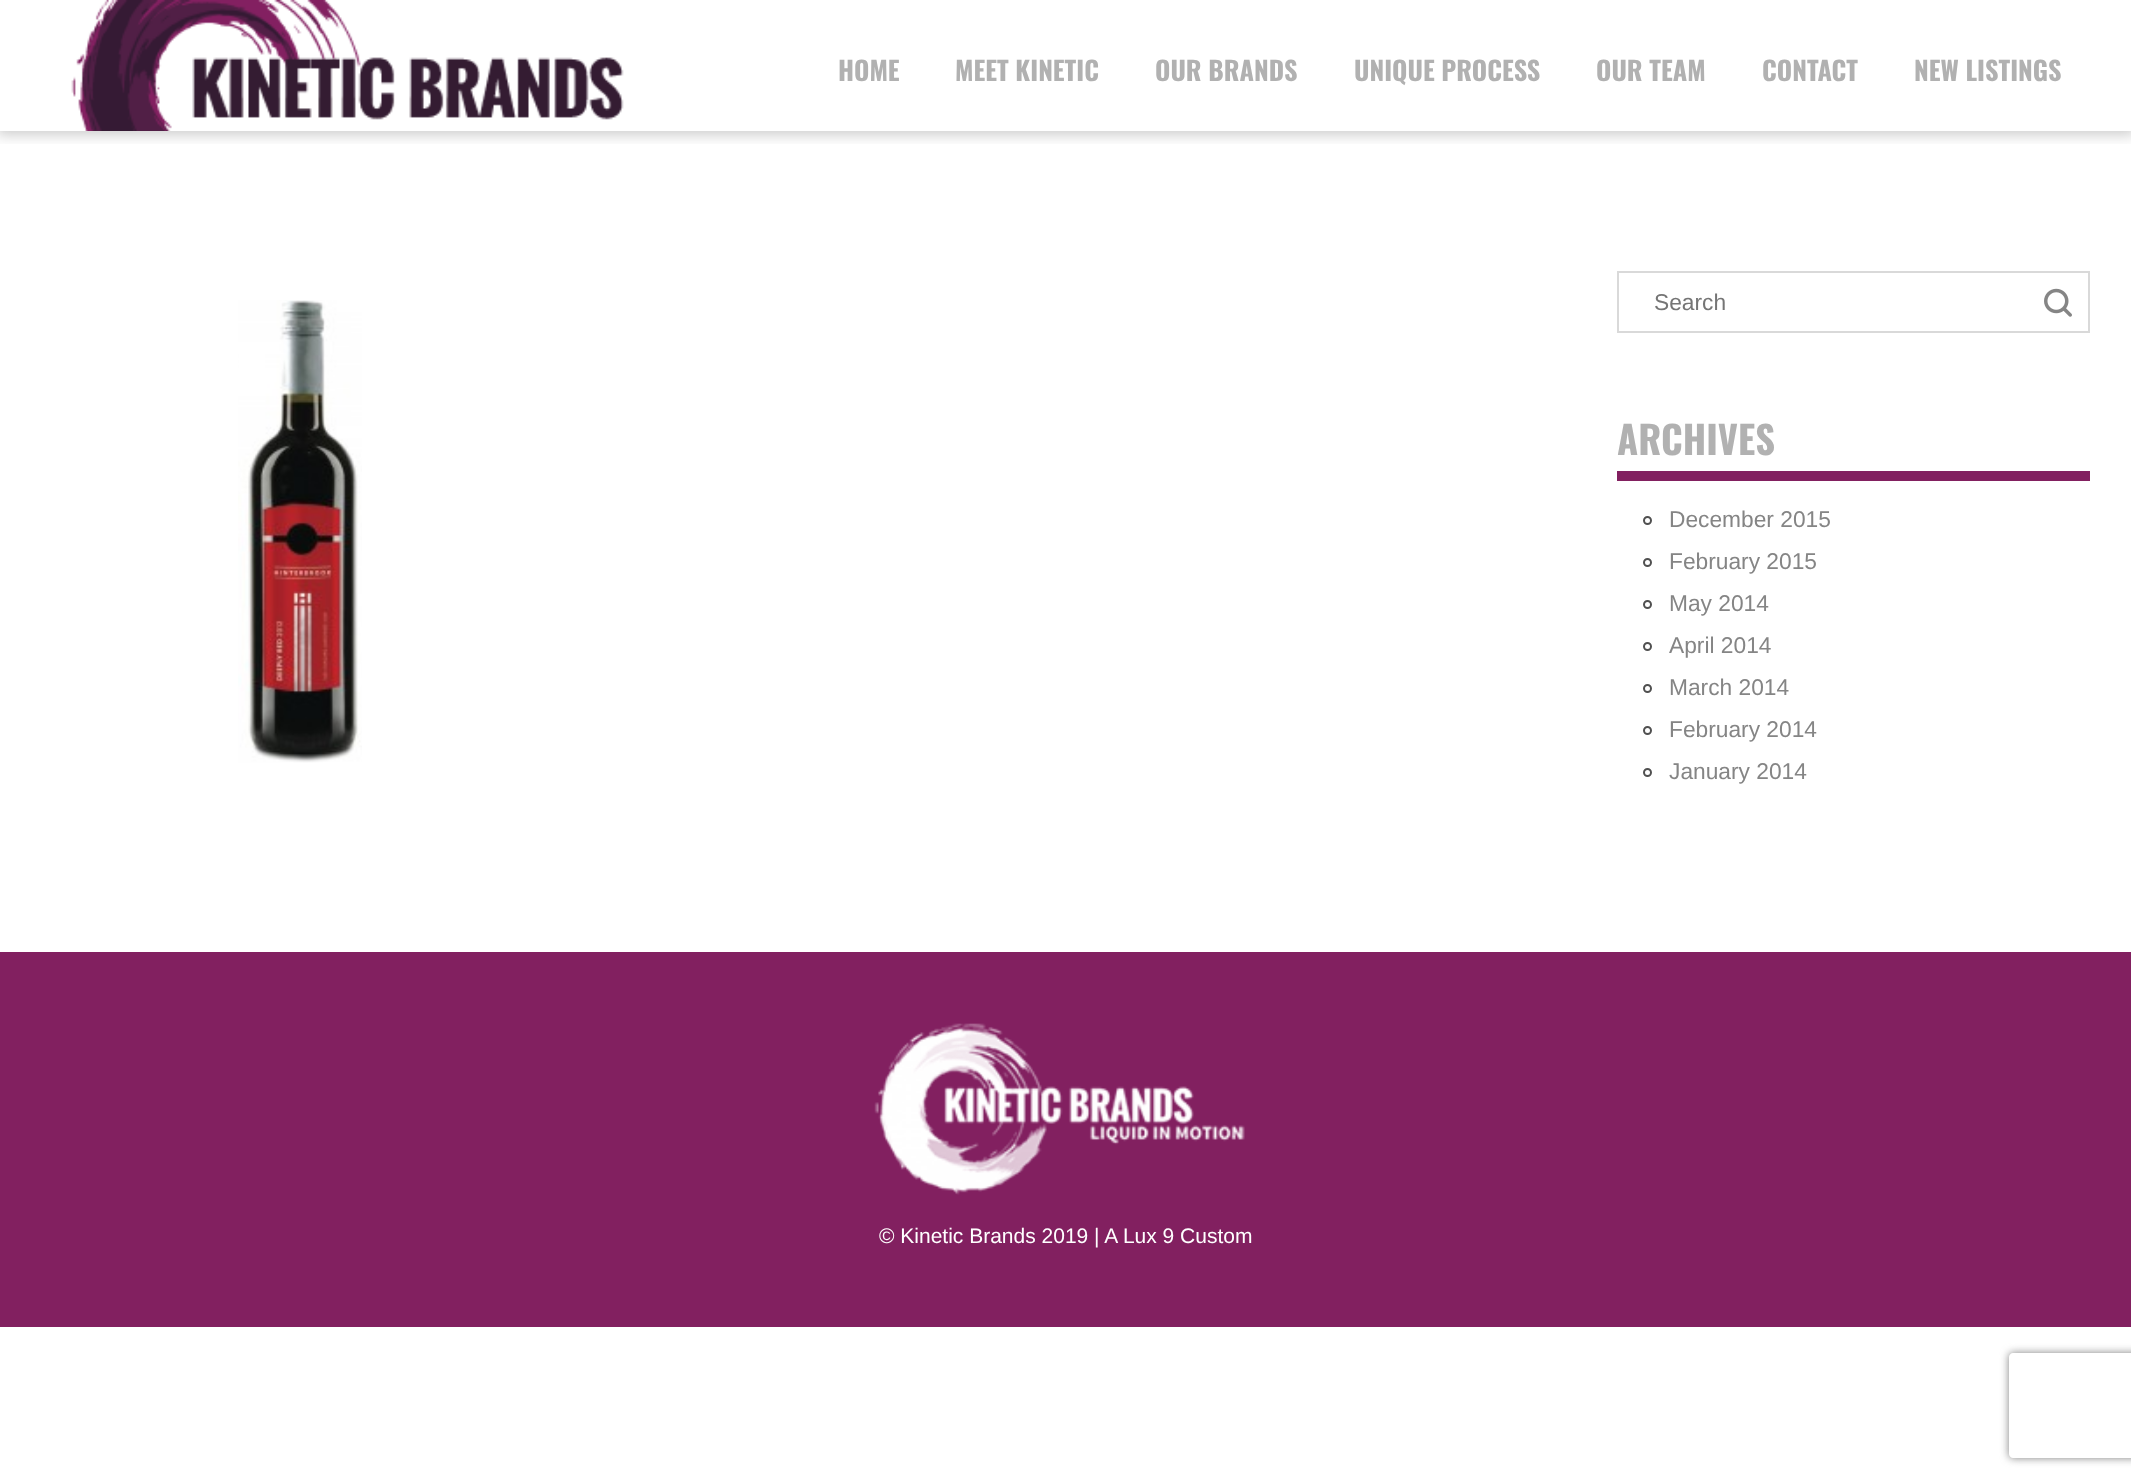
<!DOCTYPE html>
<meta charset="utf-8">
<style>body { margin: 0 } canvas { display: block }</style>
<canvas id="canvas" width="2131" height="1481"></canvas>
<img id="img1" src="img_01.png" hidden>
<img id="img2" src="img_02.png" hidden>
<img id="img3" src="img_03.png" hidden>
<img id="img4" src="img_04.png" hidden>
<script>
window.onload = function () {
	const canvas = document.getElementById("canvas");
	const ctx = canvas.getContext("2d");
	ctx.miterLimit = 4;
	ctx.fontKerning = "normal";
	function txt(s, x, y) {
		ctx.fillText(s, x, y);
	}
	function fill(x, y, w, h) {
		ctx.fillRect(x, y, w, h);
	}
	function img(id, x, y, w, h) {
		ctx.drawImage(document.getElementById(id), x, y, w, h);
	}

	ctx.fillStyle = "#FFFFFF";
	fill(0, 0, 2131, 1481);
	ctx.save();
	ctx.beginPath();
	ctx.rect(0, 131, 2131, 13);
	ctx.clip();
	ctx.fillStyle = "rgba(0, 0, 0, 0.2)";
	ctx.filter = "blur(7px)";
	ctx.beginPath();
	ctx.rect(-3, -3, 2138, 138);
	ctx.fill();
	ctx.filter = "none";
	ctx.restore();
	img("img1", 71, 0, 553, 131);
	img("img2", 238, 300, 124, 463);
	ctx.strokeStyle = "#D9D9D9";
	ctx.lineWidth = 2;
	ctx.strokeRect(1618, 272, 471, 60);
	img("img3", 2044, 288, 28, 29);
	ctx.fillStyle = "#822060";
	fill(1617, 471, 473, 10);
	ctx.beginPath();
	ctx.arc(1647.5, 520.5, 3.5, 0, Math.PI * 2);
	ctx.strokeStyle = "#505050";
	ctx.stroke();
	ctx.beginPath();
	ctx.arc(1647.5, 562.5, 3.5, 0, Math.PI * 2);
	ctx.stroke();
	ctx.beginPath();
	ctx.arc(1647.5, 604.5, 3.5, 0, Math.PI * 2);
	ctx.stroke();
	ctx.beginPath();
	ctx.arc(1647.5, 646.5, 3.5, 0, Math.PI * 2);
	ctx.stroke();
	ctx.beginPath();
	ctx.arc(1647.5, 688.5, 3.5, 0, Math.PI * 2);
	ctx.stroke();
	ctx.beginPath();
	ctx.arc(1647.5, 730.5, 3.5, 0, Math.PI * 2);
	ctx.stroke();
	ctx.beginPath();
	ctx.arc(1647.5, 772.5, 3.5, 0, Math.PI * 2);
	ctx.stroke();
	fill(0, 952, 2131, 375);
	img("img4", 874, 1023, 371, 172);
	ctx.save();
	ctx.beginPath();
	ctx.moveTo(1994, 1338);
	ctx.lineTo(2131, 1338);
	ctx.lineTo(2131, 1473);
	ctx.lineTo(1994, 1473);
	ctx.closePath();
	ctx.moveTo(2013, 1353);
	ctx.lineTo(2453, 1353);
	ctx.bezierCurveTo(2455, 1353, 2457, 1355, 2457, 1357);
	ctx.lineTo(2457, 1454);
	ctx.bezierCurveTo(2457, 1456, 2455, 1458, 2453, 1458);
	ctx.lineTo(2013, 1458);
	ctx.bezierCurveTo(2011, 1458, 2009, 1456, 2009, 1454);
	ctx.lineTo(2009, 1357);
	ctx.bezierCurveTo(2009, 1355, 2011, 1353, 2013, 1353);
	ctx.closePath();
	ctx.clip("evenodd");
	ctx.fillStyle = "#808080";
	ctx.filter = "blur(4.5px)";
	ctx.beginPath();
	ctx.roundRect(2009, 1353, 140, 105, 4);
	ctx.fill();
	ctx.filter = "none";
	ctx.restore();
	ctx.font = "bold 26.25px Oswald";
	ctx.fillStyle = "#B1B1B1";
	txt("HOME", 838, 81);
	txt("MEET KINETIC", 955, 81);
	txt("OUR BRANDS", 1155, 81);
	txt("UNIQUE PROCESS", 1354, 81);
	txt("OUR TEAM", 1596, 81);
	txt("CONTACT", 1762, 81);
	txt("NEW LISTINGS", 1914, 81);
	ctx.font = "22.75px Liberation Sans";
	ctx.fillStyle = "#757575";
	txt("Search", 1654, 310);
	ctx.font = "bold 38.5px Oswald";
	ctx.fillStyle = "#B1B1B1";
	txt("ARCHIVES", 1617, 455);
	ctx.font = "22.75px Liberation Sans";
	ctx.fillStyle = "#858585";
	txt("December 2015", 1669, 527);
	txt("February 2015", 1669, 569);
	txt("May 2014", 1669, 611);
	txt("April 2014", 1669, 653);
	txt("March 2014", 1669, 695);
	txt("February 2014", 1669, 737);
	txt("January 2014", 1669, 779);
	ctx.font = "21px Liberation Sans";
	ctx.fillStyle = "#FFFFFF";
	txt("© Kinetic Brands 2019 | A Lux 9 Custom", 879, 1243);
};
</script>
